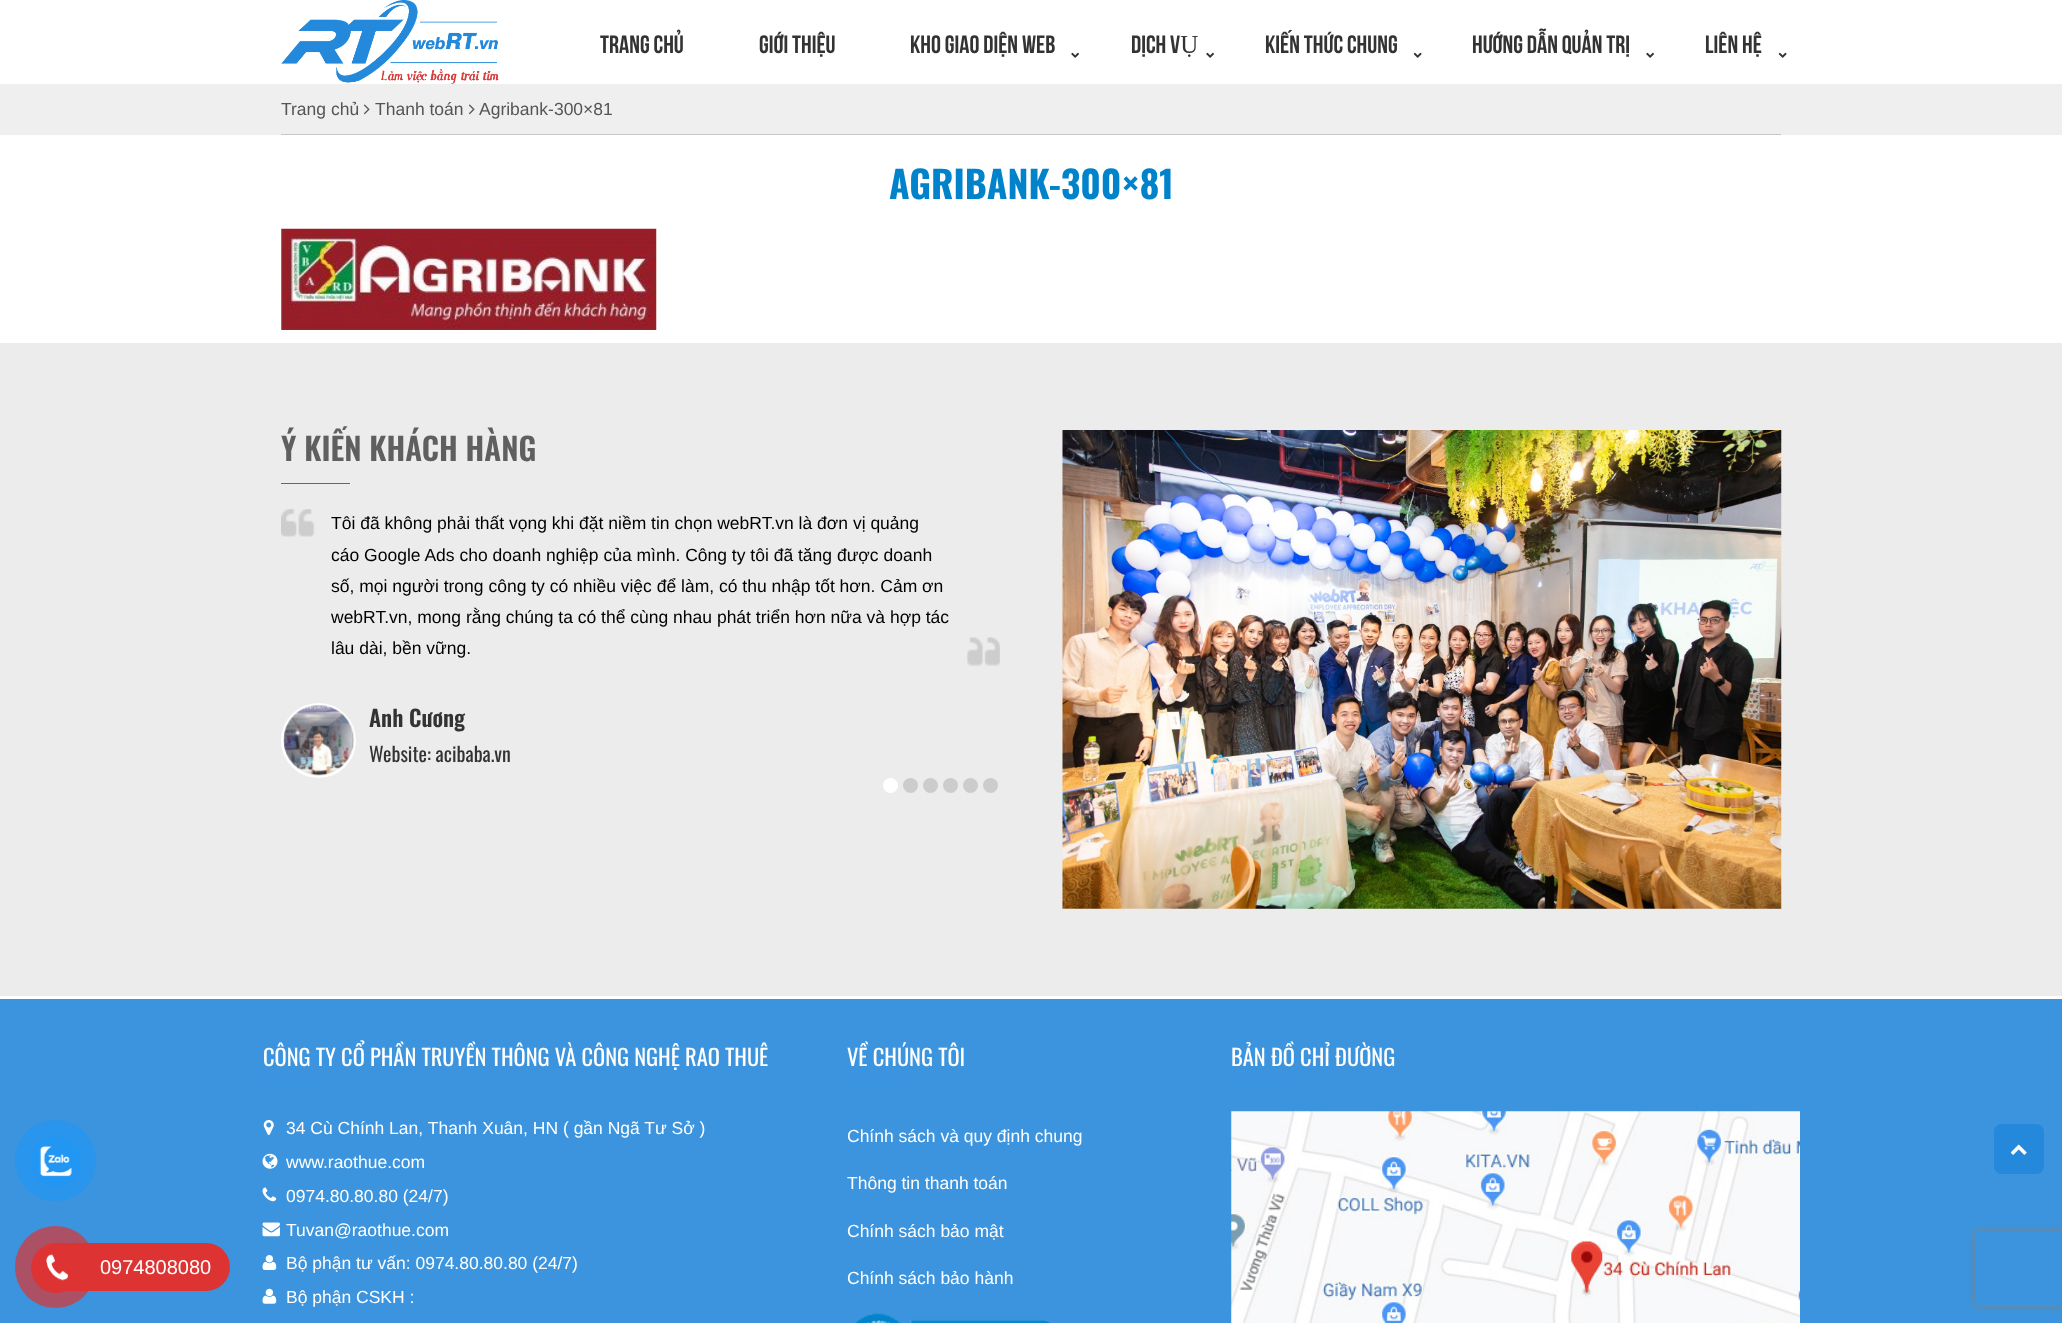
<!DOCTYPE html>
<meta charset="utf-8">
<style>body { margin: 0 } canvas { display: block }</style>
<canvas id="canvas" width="2062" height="1323"></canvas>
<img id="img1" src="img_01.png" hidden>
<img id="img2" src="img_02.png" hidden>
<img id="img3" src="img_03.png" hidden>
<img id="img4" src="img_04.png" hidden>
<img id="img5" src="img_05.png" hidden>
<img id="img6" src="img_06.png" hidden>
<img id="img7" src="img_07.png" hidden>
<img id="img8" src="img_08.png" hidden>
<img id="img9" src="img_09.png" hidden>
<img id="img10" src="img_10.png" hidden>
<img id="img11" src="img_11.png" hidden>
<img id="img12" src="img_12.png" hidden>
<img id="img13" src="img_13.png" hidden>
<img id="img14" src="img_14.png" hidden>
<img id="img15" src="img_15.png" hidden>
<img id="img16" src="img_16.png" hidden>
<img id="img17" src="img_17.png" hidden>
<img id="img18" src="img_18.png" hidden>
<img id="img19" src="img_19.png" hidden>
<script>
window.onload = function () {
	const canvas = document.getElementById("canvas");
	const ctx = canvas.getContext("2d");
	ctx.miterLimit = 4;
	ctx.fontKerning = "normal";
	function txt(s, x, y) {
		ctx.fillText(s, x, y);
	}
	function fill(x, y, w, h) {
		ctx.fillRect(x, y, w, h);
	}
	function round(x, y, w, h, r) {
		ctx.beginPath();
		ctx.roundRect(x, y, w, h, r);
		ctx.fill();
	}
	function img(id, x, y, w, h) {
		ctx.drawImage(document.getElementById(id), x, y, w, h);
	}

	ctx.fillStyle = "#FFFFFF";
	fill(0, 0, 2062, 1323);
	ctx.fillStyle = "#3B94DD";
	fill(0, 999, 2062, 324);
	ctx.fillStyle = "#2995EC";
	ctx.beginPath();
	ctx.arc(55.5, 1160.5, 40.5, 0, Math.PI * 2);
	ctx.fill();
	ctx.fillStyle = "#2196F3";
	ctx.beginPath();
	ctx.arc(56, 1161, 25, 0, Math.PI * 2);
	ctx.fill();
	img("img1", 39, 1146, 33, 31);
	ctx.fillStyle = "#DD3333";
	round(38, 1243, 192, 48, 24);
	ctx.fillStyle = "rgba(221, 51, 51, 0.7)";
	round(15, 1226, 81, 82, 40.5);
	ctx.fillStyle = "#DD3333";
	ctx.beginPath();
	ctx.arc(56, 1268, 25, 0, Math.PI * 2);
	ctx.fill();
	img("img2", 46, 1254, 22, 27);
	img("img3", 281, 0, 218, 84);
	img("img4", 1071, 52, 8, 6);
	img("img4", 1206, 52, 8, 6);
	img("img5", 1413, 52, 9, 6);
	img("img4", 1646, 52, 8, 6);
	img("img5", 1778, 52, 9, 6);
	ctx.fillStyle = "#EFEFEF";
	fill(0, 84, 2062, 51);
	ctx.fillStyle = "#C6C6C6";
	fill(281, 134, 1500, 1);
	img("img6", 363, 104, 7, 11);
	img("img6", 468, 104, 7, 11);
	img("img7", 281, 228, 376, 102);
	ctx.fillStyle = "#ECECEC";
	fill(0, 343, 2062, 653);
	ctx.fillStyle = "#207BC5";
	fill(281, 483, 69, 1);
	img("img8", 281, 509, 719, 157);
	ctx.beginPath();
	ctx.arc(318.5, 740.5, 36, 0, Math.PI * 2);
	ctx.strokeStyle = "#FFFFFF";
	ctx.lineWidth = 3;
	ctx.stroke();
	img("img9", 283, 705, 72, 71);
	ctx.fillStyle = "#FFFFFF";
	ctx.beginPath();
	ctx.arc(890.5, 785.5, 7.5, 0, Math.PI * 2);
	ctx.fill();
	ctx.fillStyle = "#CCCCCC";
	ctx.beginPath();
	ctx.arc(910.5, 785.5, 7.5, 0, Math.PI * 2);
	ctx.fill();
	ctx.beginPath();
	ctx.arc(930.5, 785.5, 7.5, 0, Math.PI * 2);
	ctx.fill();
	ctx.beginPath();
	ctx.arc(950.5, 785.5, 7.5, 0, Math.PI * 2);
	ctx.fill();
	ctx.beginPath();
	ctx.arc(970.5, 785.5, 7.5, 0, Math.PI * 2);
	ctx.fill();
	ctx.beginPath();
	ctx.arc(990.5, 785.5, 7.5, 0, Math.PI * 2);
	ctx.fill();
	img("img10", 1062, 430, 720, 479);
	ctx.fillStyle = "#3795E1";
	fill(263, 1085, 55, 3);
	img("img11", 263, 1120, 11, 15);
	img("img12", 262, 1153, 16, 16);
	img("img13", 262, 1187, 15, 15);
	img("img14", 262, 1222, 18, 15);
	img("img15", 262, 1255, 15, 15);
	img("img16", 262, 1288, 15, 16);
	fill(846, 1085, 55, 3);
	img("img17", 855, 1313, 196, 10);
	fill(1231, 1085, 55, 3);
	img("img18", 1231, 1111, 569, 212);
	ctx.fillStyle = "#2489DA";
	round(1994, 1124, 50, 50, 8);
	img("img19", 2010, 1144, 17, 11);
	ctx.save();
	ctx.beginPath();
	ctx.moveTo(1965, 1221);
	ctx.lineTo(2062, 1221);
	ctx.lineTo(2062, 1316);
	ctx.lineTo(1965, 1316);
	ctx.closePath();
	ctx.moveTo(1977.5, 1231);
	ctx.lineTo(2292.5, 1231);
	ctx.bezierCurveTo(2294, 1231, 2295, 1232, 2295, 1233.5);
	ctx.lineTo(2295, 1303.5);
	ctx.bezierCurveTo(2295, 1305, 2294, 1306, 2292.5, 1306);
	ctx.lineTo(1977.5, 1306);
	ctx.bezierCurveTo(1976, 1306, 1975, 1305, 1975, 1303.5);
	ctx.lineTo(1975, 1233.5);
	ctx.bezierCurveTo(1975, 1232, 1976, 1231, 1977.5, 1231);
	ctx.closePath();
	ctx.clip("evenodd");
	ctx.fillStyle = "#808080";
	ctx.filter = "blur(3px)";
	ctx.beginPath();
	ctx.roundRect(1975, 1231, 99, 75, 2.5);
	ctx.fill();
	ctx.filter = "none";
	ctx.restore();
	ctx.font = "20px Liberation Sans";
	ctx.fillStyle = "#FFFFFF";
	txt("0974808080", 100, 1274);
	ctx.font = "25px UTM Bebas";
	ctx.fillStyle = "#333333";
	txt("TRANG CHỦ", 600, 53);
	txt("GIỚI THIỆU", 759, 53);
	txt("KHO GIAO DIỆN WEB", 910, 53);
	txt("DỊCH VỤ", 1131, 53);
	txt("KIẾN THỨC CHUNG", 1265, 53);
	txt("HƯỚNG DẪN QUẢN TRỊ", 1472, 53);
	txt("LIÊN HỆ", 1705, 53);
	ctx.font = "17.5px Liberation Sans";
	ctx.fillStyle = "#555555";
	txt("Trang chủ", 281, 115);
	txt("Thanh toán", 375, 115);
	txt("Agribank-300×81", 479, 115);
	ctx.font = "bold 37.5px Oswald";
	ctx.fillStyle = "#0083CA";
	txt("AGRIBANK-300×81", 889, 199);
	ctx.font = "600 31.25px Oswald";
	ctx.fillStyle = "#605F5F";
	txt("Ý KIẾN KHÁCH HÀNG", 281, 461);
	ctx.font = "17.5px Liberation Sans";
	ctx.fillStyle = "#000000";
	txt("Tôi đã không phải thất vọng khi đặt niềm tin chọn webRT.vn là đơn vị quảng", 331, 529);
	txt("cáo Google Ads cho doanh nghiệp của mình. Công ty tôi đã tăng được doanh", 331, 561);
	txt("số, mọi người trong công ty có nhiều việc để làm, có thu nhập tốt hơn. Cảm ơn", 331, 592);
	txt("webRT.vn, mong rằng chúng ta có thể cùng nhau phát triển hơn nữa và hợp tác", 331, 623);
	txt("lâu dài, bền vững.", 331, 654);
	ctx.font = "600 22.5px Oswald";
	ctx.fillStyle = "#333333";
	txt("Anh Cương", 369, 727);
	ctx.font = "20px Oswald";
	txt("Website: acibaba.vn", 369, 762);
	ctx.font = "22.5px Oswald";
	ctx.fillStyle = "#FFFFFF";
	txt("CÔNG TY CỔ PHẦN TRUYỀN THÔNG VÀ CÔNG NGHỆ RAO THUÊ", 263, 1066);
	ctx.font = "17.5px Liberation Sans";
	txt("34 Cù Chính Lan, Thanh Xuân, HN ( gần Ngã Tư Sở )", 286, 1134);
	txt("www.raothue.com", 286, 1168);
	txt("0974.80.80.80 (24/7)", 286, 1202);
	txt("Tuvan@raothue.com", 286, 1236);
	txt("Bộ phận tư vấn: 0974.80.80.80 (24/7)", 286, 1269);
	txt("Bộ phận CSKH :", 286, 1303);
	ctx.font = "22.5px Oswald";
	txt("VỀ CHÚNG TÔI", 847, 1066);
	ctx.font = "17.5px Liberation Sans";
	txt("Chính sách và quy định chung", 847, 1142);
	txt("Thông tin thanh toán", 847, 1189);
	txt("Chính sách bảo mật", 847, 1237);
	txt("Chính sách bảo hành", 847, 1284);
	ctx.font = "22.5px Oswald";
	txt("BẢN ĐỒ CHỈ ĐƯỜNG", 1231, 1066);
};
</script>
